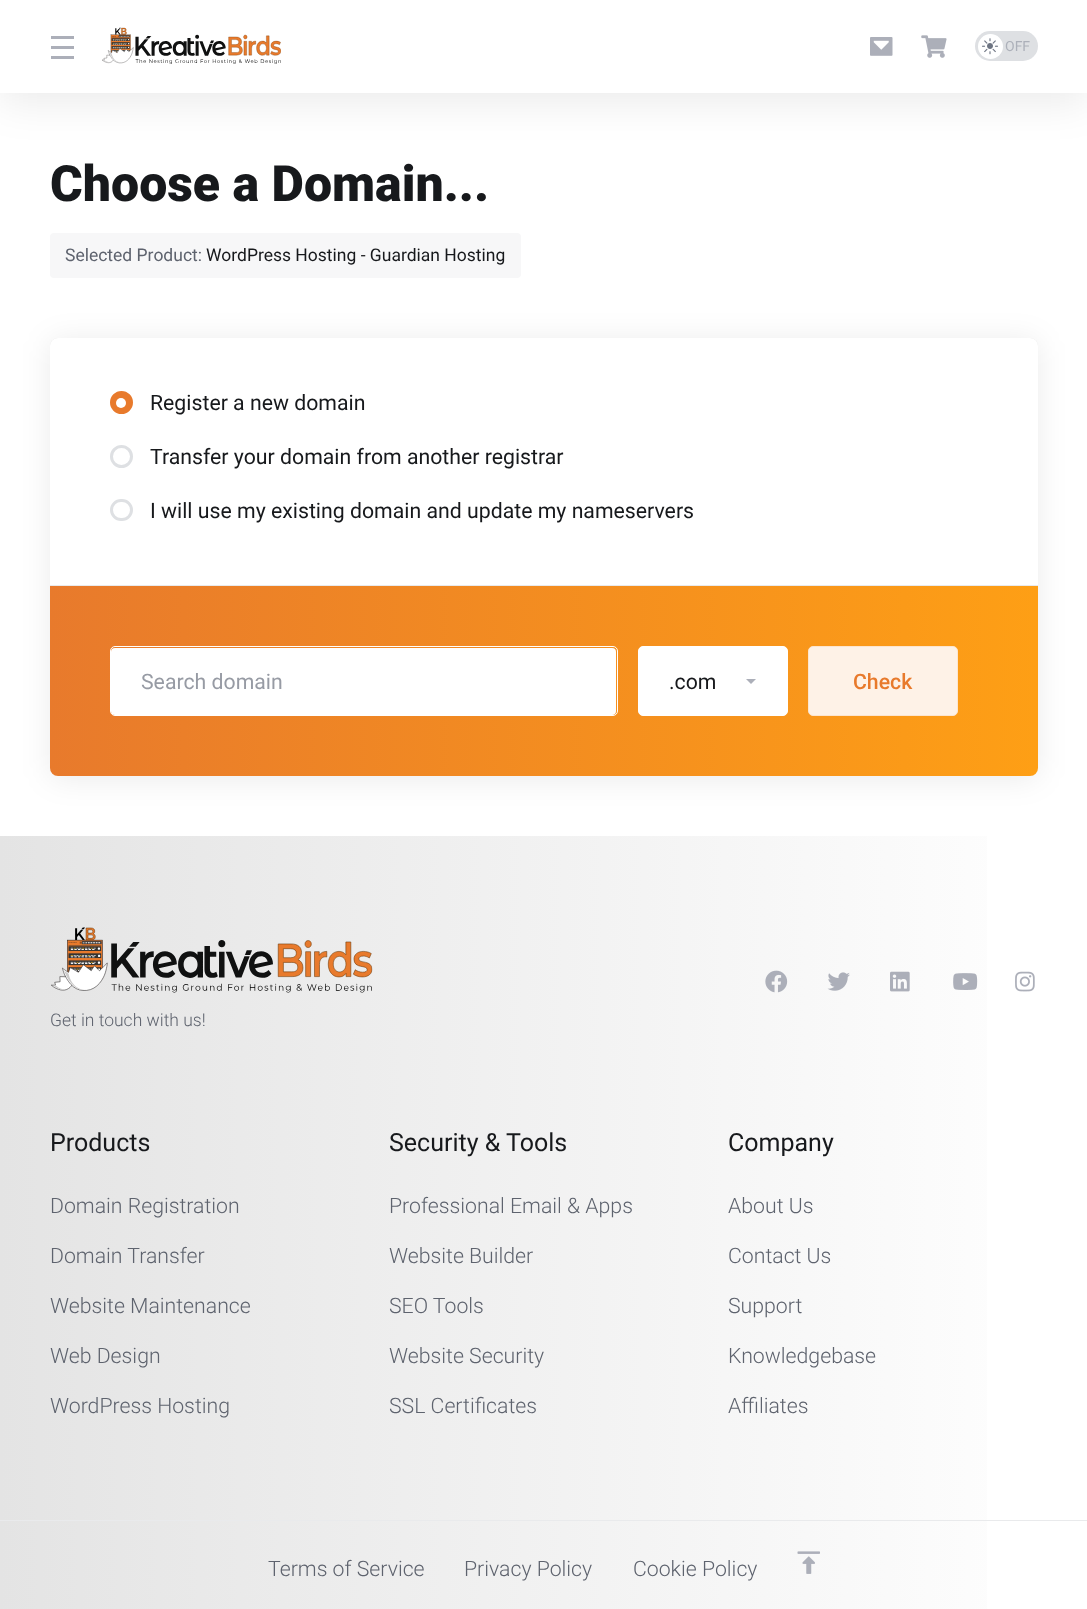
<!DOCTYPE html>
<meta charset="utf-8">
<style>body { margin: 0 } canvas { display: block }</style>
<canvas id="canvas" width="1087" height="1609"></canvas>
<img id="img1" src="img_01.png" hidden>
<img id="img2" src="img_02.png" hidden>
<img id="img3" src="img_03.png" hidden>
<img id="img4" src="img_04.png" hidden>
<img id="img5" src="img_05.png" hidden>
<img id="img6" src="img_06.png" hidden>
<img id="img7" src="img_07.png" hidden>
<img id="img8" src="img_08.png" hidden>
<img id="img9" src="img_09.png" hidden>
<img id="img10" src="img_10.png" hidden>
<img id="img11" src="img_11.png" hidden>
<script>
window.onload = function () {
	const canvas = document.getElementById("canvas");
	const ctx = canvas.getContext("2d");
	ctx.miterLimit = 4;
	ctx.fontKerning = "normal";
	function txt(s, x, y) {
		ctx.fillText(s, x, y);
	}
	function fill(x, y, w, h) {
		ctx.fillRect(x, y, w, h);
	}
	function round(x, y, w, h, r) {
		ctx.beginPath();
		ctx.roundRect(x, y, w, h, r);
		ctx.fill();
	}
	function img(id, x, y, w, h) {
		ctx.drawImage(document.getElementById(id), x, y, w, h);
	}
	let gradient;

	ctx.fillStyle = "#FFFFFF";
	fill(0, 0, 1087, 1609);
	ctx.fillStyle = "rgba(0, 0, 0, 0.08)";
	ctx.filter = "blur(20px)";
	ctx.beginPath();
	ctx.rect(0, 10, 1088, 93);
	ctx.fill();
	ctx.filter = "none";
	ctx.fillStyle = "#FFFFFF";
	fill(0, 0, 1087, 93);
	ctx.fillStyle = "#ACAFB9";
	fill(51, 36, 23, 3);
	fill(51, 46, 23, 3);
	fill(51, 56, 23, 3);
	img("img1", 102, 27, 179, 37);
	img("img2", 870, 37, 23, 19);
	img("img3", 921, 35, 26, 23);
	ctx.fillStyle = "#DEE0E3";
	round(975, 31, 63, 30, 15);
	ctx.fillStyle = "#FFFFFF";
	ctx.beginPath();
	ctx.arc(990.5, 46.5, 12.5, 0, Math.PI * 2);
	ctx.fill();
	img("img4", 982, 38, 16, 17);
	ctx.fillStyle = "#F7F7F8";
	round(50, 233, 471, 45, 4);
	ctx.fillStyle = "rgba(0, 0, 0, 0.08)";
	ctx.filter = "blur(15px)";
	ctx.beginPath();
	ctx.roundRect(50, 340, 988, 439, 8);
	ctx.fill();
	ctx.filter = "none";
	ctx.fillStyle = "rgba(0, 0, 0, 0.1)";
	ctx.filter = "blur(0.5px)";
	ctx.beginPath();
	ctx.roundRect(50, 338, 988, 438, 8);
	ctx.fill();
	ctx.filter = "none";
	ctx.fillStyle = "#FFFFFF";
	round(50, 338, 988, 438, 8);
	ctx.fillStyle = "#E87A2C";
	ctx.beginPath();
	ctx.arc(121.5, 402.5, 10, 0, Math.PI * 2);
	ctx.fill();
	ctx.strokeStyle = "#E87A2C";
	ctx.lineWidth = 3;
	ctx.stroke();
	ctx.fillStyle = "#FFFFFF";
	ctx.beginPath();
	ctx.arc(121, 403, 5, 0, Math.PI * 2);
	ctx.fill();
	ctx.beginPath();
	ctx.arc(121.5, 456.5, 10, 0, Math.PI * 2);
	ctx.strokeStyle = "#DEE0E3";
	ctx.stroke();
	ctx.beginPath();
	ctx.roundRect(111.5, 500.5, 20, 19, 9.5);
	ctx.stroke();
	gradient = ctx.createLinearGradient(50, 681, 1038, 681);
	gradient.addColorStop(0, "#E87A2C");
	gradient.addColorStop(1, "#FE9F15");
	ctx.fillStyle = gradient;
	ctx.beginPath();
	ctx.roundRect(50, 585, 988, 191, [0, 0, 8, 8]);
	ctx.fill();
	ctx.fillStyle = "#E9EAEC";
	fill(50, 585, 988, 1);
	ctx.fillStyle = "#FFFFFF";
	round(111, 648, 505, 67, 4);
	ctx.beginPath();
	ctx.roundRect(110.5, 646.5, 507, 69, 4.5);
	ctx.strokeStyle = "#FFFFFF";
	ctx.lineWidth = 1;
	ctx.stroke();
	ctx.beginPath();
	ctx.roundRect(638.5, 646.5, 149, 69, 4.5);
	ctx.fill();
	ctx.stroke();
	ctx.fillStyle = "#ACAFB9";
	ctx.beginPath();
	ctx.moveTo(746, 679);
	ctx.lineTo(756, 679);
	ctx.lineTo(751, 684);
	ctx.closePath();
	ctx.fill();
	ctx.fillStyle = "#FEF2E7";
	ctx.beginPath();
	ctx.roundRect(808.5, 646.5, 149, 69, 4.5);
	ctx.fill();
	ctx.strokeStyle = "#FCE5CF";
	ctx.stroke();
	gradient = ctx.createLinearGradient(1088, 1251, 0, 1251);
	gradient.addColorStop(0, "#FFFFFF");
	gradient.addColorStop(1, "#E4E4E4");
	ctx.fillStyle = gradient;
	fill(0, 836, 987, 773);
	img("img5", 765, 970, 23, 23);
	img("img6", 827, 972, 23, 19);
	img("img7", 890, 971, 20, 21);
	img("img8", 953, 973, 25, 17);
	img("img9", 1015, 971, 20, 21);
	img("img10", 51, 927, 322, 66);
	ctx.fillStyle = "#E9EAEC";
	fill(0, 1520, 1087, 1);
	img("img11", 797, 1551, 23, 23);
	ctx.font = "14px Roboto";
	ctx.fillStyle = "#ACB0B9";
	txt("OFF", 1005, 51);
	ctx.font = "900 50px Roboto";
	ctx.fillStyle = "#17191C";
	txt("Choose a Domain...", 50, 201);
	ctx.font = "17.5px Roboto";
	ctx.fillStyle = "#5E636E";
	txt("Selected Product:", 65, 261);
	ctx.fillStyle = "#17191C";
	txt("WordPress Hosting - Guardian Hosting", 206, 261);
	ctx.font = "21.25px Roboto";
	txt("Register a new domain", 150, 410);
	txt("Transfer your domain from another registrar", 150, 464);
	txt("I will use my existing domain and update my nameservers", 150, 518);
	ctx.fillStyle = "#979BA4";
	txt("Search domain", 141, 689);
	ctx.fillStyle = "#17191C";
	txt(".com", 669, 689);
	ctx.font = "500 21.25px Roboto";
	ctx.fillStyle = "#E87A2C";
	txt("Check", 853, 689);
	ctx.font = "300 17.5px Roboto";
	ctx.fillStyle = "#5E636E";
	txt("Get in touch with us!", 50, 1026);
	ctx.font = "25px Roboto";
	ctx.fillStyle = "#17191C";
	txt("Products", 50, 1151);
	ctx.font = "300 21.25px Roboto";
	ctx.fillStyle = "#5E636E";
	txt("Domain Registration", 50, 1213);
	txt("Domain Transfer", 50, 1263);
	txt("Website Maintenance", 50, 1313);
	txt("Web Design", 50, 1363);
	txt("WordPress Hosting", 50, 1413);
	ctx.font = "25px Roboto";
	ctx.fillStyle = "#17191C";
	txt("Security & Tools", 389, 1151);
	ctx.font = "300 21.25px Roboto";
	ctx.fillStyle = "#5E636E";
	txt("Professional Email & Apps", 389, 1213);
	txt("Website Builder", 389, 1263);
	txt("SEO Tools", 389, 1313);
	txt("Website Security", 389, 1363);
	txt("SSL Certificates", 389, 1413);
	ctx.font = "25px Roboto";
	ctx.fillStyle = "#17191C";
	txt("Company", 728, 1151);
	ctx.font = "300 21.25px Roboto";
	ctx.fillStyle = "#5E636E";
	txt("About Us", 728, 1213);
	txt("Contact Us", 728, 1263);
	txt("Support", 728, 1313);
	txt("Knowledgebase", 728, 1363);
	txt("Affiliates", 728, 1413);
	txt("Terms of Service", 268, 1576);
	txt("Privacy Policy", 464, 1576);
	txt("Cookie Policy", 633, 1576);
};
</script>
